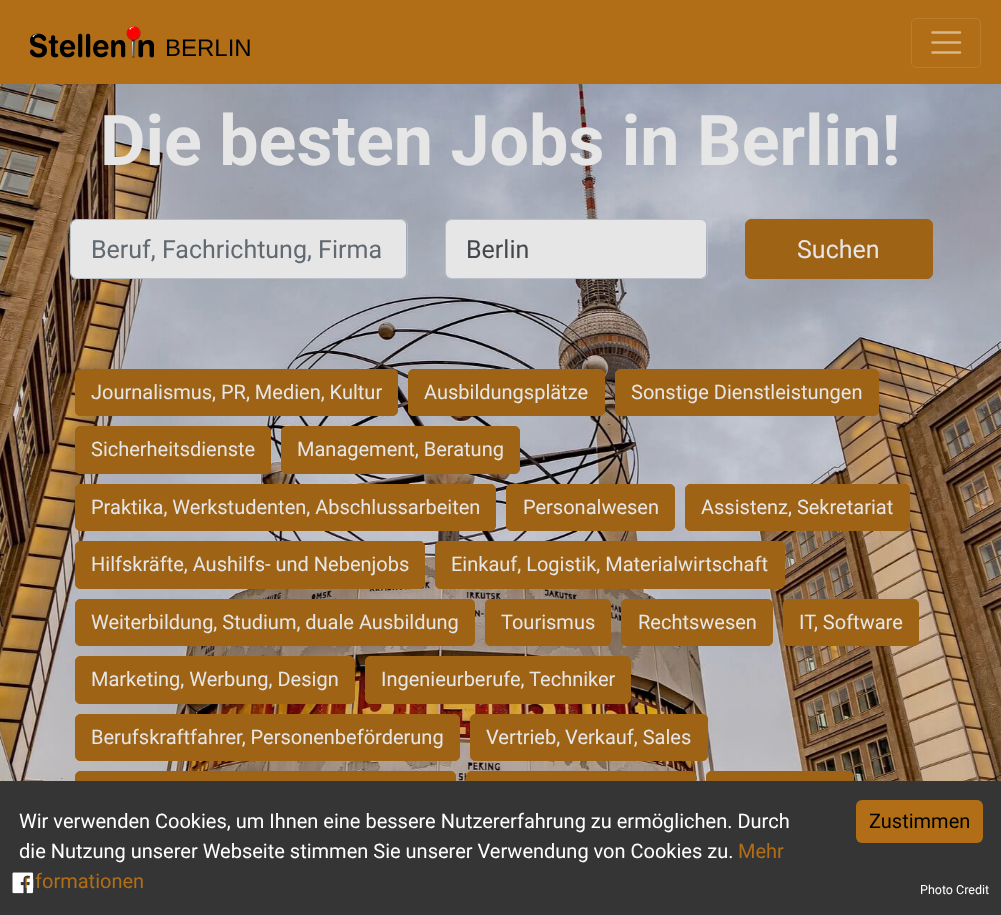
<!DOCTYPE html>
<meta charset="utf-8">
<style>body { margin: 0 } canvas { display: block }</style>
<canvas id="canvas" width="1001" height="915"></canvas>
<img id="img1" src="img_01.png" hidden>
<img id="img2" src="img_02.png" hidden>
<img id="img3" src="img_03.png" hidden>
<script>
window.onload = function () {
	const canvas = document.getElementById("canvas");
	const ctx = canvas.getContext("2d");
	ctx.miterLimit = 4;
	ctx.fontKerning = "normal";
	function txt(s, x, y) {
		ctx.fillText(s, x, y);
	}
	function fill(x, y, w, h) {
		ctx.fillRect(x, y, w, h);
	}
	function round(x, y, w, h, r) {
		ctx.beginPath();
		ctx.roundRect(x, y, w, h, r);
		ctx.fill();
	}
	function img(id, x, y, w, h) {
		ctx.drawImage(document.getElementById(id), x, y, w, h);
	}

	ctx.fillStyle = "#FFFFFF";
	fill(0, 0, 1001, 915);
	ctx.fillStyle = "#B16E17";
	fill(0, 0, 1001, 84);
	img("img1", 30, 26, 124, 32);
	ctx.beginPath();
	ctx.roundRect(911.5, 18.5, 69, 49, 4.5);
	ctx.strokeStyle = "#B97D2E";
	ctx.stroke();
	ctx.beginPath();
	ctx.moveTo(932.5, 32.5);
	ctx.lineTo(960, 32.5);
	ctx.moveTo(932.5, 42.5);
	ctx.lineTo(960, 42.5);
	ctx.moveTo(932.5, 52.5);
	ctx.lineTo(960, 52.5);
	ctx.strokeStyle = "#D8B78B";
	ctx.lineWidth = 2.5;
	ctx.lineCap = "round";
	ctx.stroke();
	img("img2", 0, 84, 1001, 697);
	ctx.fillStyle = "#9F6315";
	ctx.beginPath();
	ctx.roundRect(75.5, 771.5, 380, 47, 4.5);
	ctx.fill();
	ctx.strokeStyle = "#9F6315";
	ctx.lineWidth = 1;
	ctx.stroke();
	ctx.beginPath();
	ctx.roundRect(466.5, 771.5, 229, 47, 4.5);
	ctx.fill();
	ctx.stroke();
	ctx.beginPath();
	ctx.roundRect(706.5, 771.5, 147, 47, 4.5);
	ctx.fill();
	ctx.stroke();
	ctx.fillStyle = "#353535";
	fill(0, 781, 1001, 134);
	ctx.fillStyle = "#B16E17";
	round(856, 800, 127, 43, 6);
	ctx.fillStyle = "#E6E6E6";
	round(71, 220, 335, 58, 5);
	ctx.beginPath();
	ctx.roundRect(70.5, 219.5, 337, 59, 5.5);
	ctx.strokeStyle = "#B9BFC4";
	ctx.stroke();
	round(446, 220, 260, 58, 5);
	ctx.beginPath();
	ctx.roundRect(445.5, 219.5, 262, 59, 5.5);
	ctx.stroke();
	ctx.fillStyle = "#9F6315";
	ctx.beginPath();
	ctx.roundRect(745.5, 219.5, 187, 59, 5.5);
	ctx.fill();
	ctx.strokeStyle = "#9F6315";
	ctx.stroke();
	ctx.beginPath();
	ctx.roundRect(75.5, 369.5, 322, 46, 4.5);
	ctx.fill();
	ctx.stroke();
	ctx.beginPath();
	ctx.roundRect(408.5, 369.5, 196, 46, 4.5);
	ctx.fill();
	ctx.stroke();
	ctx.beginPath();
	ctx.roundRect(615.5, 369.5, 263, 46, 4.5);
	ctx.fill();
	ctx.stroke();
	ctx.beginPath();
	ctx.roundRect(75.5, 426.5, 195, 47, 4.5);
	ctx.fill();
	ctx.stroke();
	ctx.beginPath();
	ctx.roundRect(281.5, 426.5, 238, 47, 4.5);
	ctx.fill();
	ctx.stroke();
	ctx.beginPath();
	ctx.roundRect(75.5, 484.5, 420, 46, 4.5);
	ctx.fill();
	ctx.stroke();
	ctx.beginPath();
	ctx.roundRect(506.5, 484.5, 168, 46, 4.5);
	ctx.fill();
	ctx.stroke();
	ctx.beginPath();
	ctx.roundRect(685.5, 484.5, 224, 46, 4.5);
	ctx.fill();
	ctx.stroke();
	ctx.beginPath();
	ctx.roundRect(75.5, 541.5, 349, 47, 4.5);
	ctx.fill();
	ctx.stroke();
	ctx.beginPath();
	ctx.roundRect(435.5, 541.5, 349, 47, 4.5);
	ctx.fill();
	ctx.stroke();
	ctx.beginPath();
	ctx.roundRect(75.5, 599.5, 399, 46, 4.5);
	ctx.fill();
	ctx.stroke();
	ctx.beginPath();
	ctx.roundRect(485.5, 599.5, 125, 46, 4.5);
	ctx.fill();
	ctx.stroke();
	ctx.beginPath();
	ctx.roundRect(621.5, 599.5, 151, 46, 4.5);
	ctx.fill();
	ctx.stroke();
	ctx.beginPath();
	ctx.roundRect(783.5, 599.5, 135, 46, 4.5);
	ctx.fill();
	ctx.stroke();
	ctx.beginPath();
	ctx.roundRect(75.5, 656.5, 279, 47, 4.5);
	ctx.fill();
	ctx.stroke();
	ctx.beginPath();
	ctx.roundRect(365.5, 656.5, 265, 47, 4.5);
	ctx.fill();
	ctx.stroke();
	ctx.beginPath();
	ctx.roundRect(75.5, 714.5, 384, 46, 4.5);
	ctx.fill();
	ctx.stroke();
	ctx.beginPath();
	ctx.roundRect(470.5, 714.5, 237, 46, 4.5);
	ctx.fill();
	ctx.stroke();
	ctx.font = "24px Liberation Sans";
	ctx.fillStyle = "#000000";
	txt("BERLIN", 165, 56);
	ctx.font = "20px Roboto";
	ctx.fillStyle = "#FFFFFF";
	txt("Wir verwenden Cookies, um Ihnen eine bessere Nutzererfahrung zu ermöglichen. Durch", 19, 828);
	txt("die Nutzung unserer Webseite stimmen Sie unserer Verwendung von Cookies zu.", 19, 858);
	ctx.fillStyle = "#B16E17";
	txt("Mehr", 738, 858);
	txt("nformationen", 24, 888);
	ctx.fillStyle = "#000000";
	txt("Zustimmen", 869, 828);
	ctx.font = "bold 70px Roboto";
	ctx.fillStyle = "#E6E6E6";
	txt("Die besten Jobs in Berlin!", 100, 165);
	ctx.font = "25px Roboto";
	ctx.fillStyle = "#616971";
	txt("Beruf, Fachrichtung, Firma", 91, 258);
	ctx.fillStyle = "#42484E";
	txt("Berlin", 466, 258);
	ctx.fillStyle = "#E6E6E6";
	txt("Suchen", 797, 258);
	ctx.font = "20px Roboto";
	txt("Journalismus, PR, Medien, Kultur", 91, 399);
	txt("Ausbildungsplätze", 424, 399);
	txt("Sonstige Dienstleistungen", 631, 399);
	txt("Sicherheitsdienste", 91, 456);
	txt("Management, Beratung", 297, 456);
	txt("Praktika, Werkstudenten, Abschlussarbeiten", 91, 514);
	txt("Personalwesen", 523, 514);
	txt("Assistenz, Sekretariat", 701, 514);
	txt("Hilfskräfte, Aushilfs- und Nebenjobs", 91, 571);
	txt("Einkauf, Logistik, Materialwirtschaft", 451, 571);
	txt("Weiterbildung, Studium, duale Ausbildung", 91, 629);
	txt("Tourismus", 501, 629);
	txt("Rechtswesen", 638, 629);
	txt("IT, Software", 799, 629);
	txt("Marketing, Werbung, Design", 91, 686);
	txt("Ingenieurberufe, Techniker", 381, 686);
	txt("Berufskraftfahrer, Personenbeförderung", 91, 744);
	txt("Vertrieb, Verkauf, Sales", 486, 744);
	img("img3", 12, 872, 22, 22);
	ctx.font = "12.5px Roboto";
	ctx.fillStyle = "#FFFFFF";
	txt("Photo Credit", 920, 894);
};
</script>
